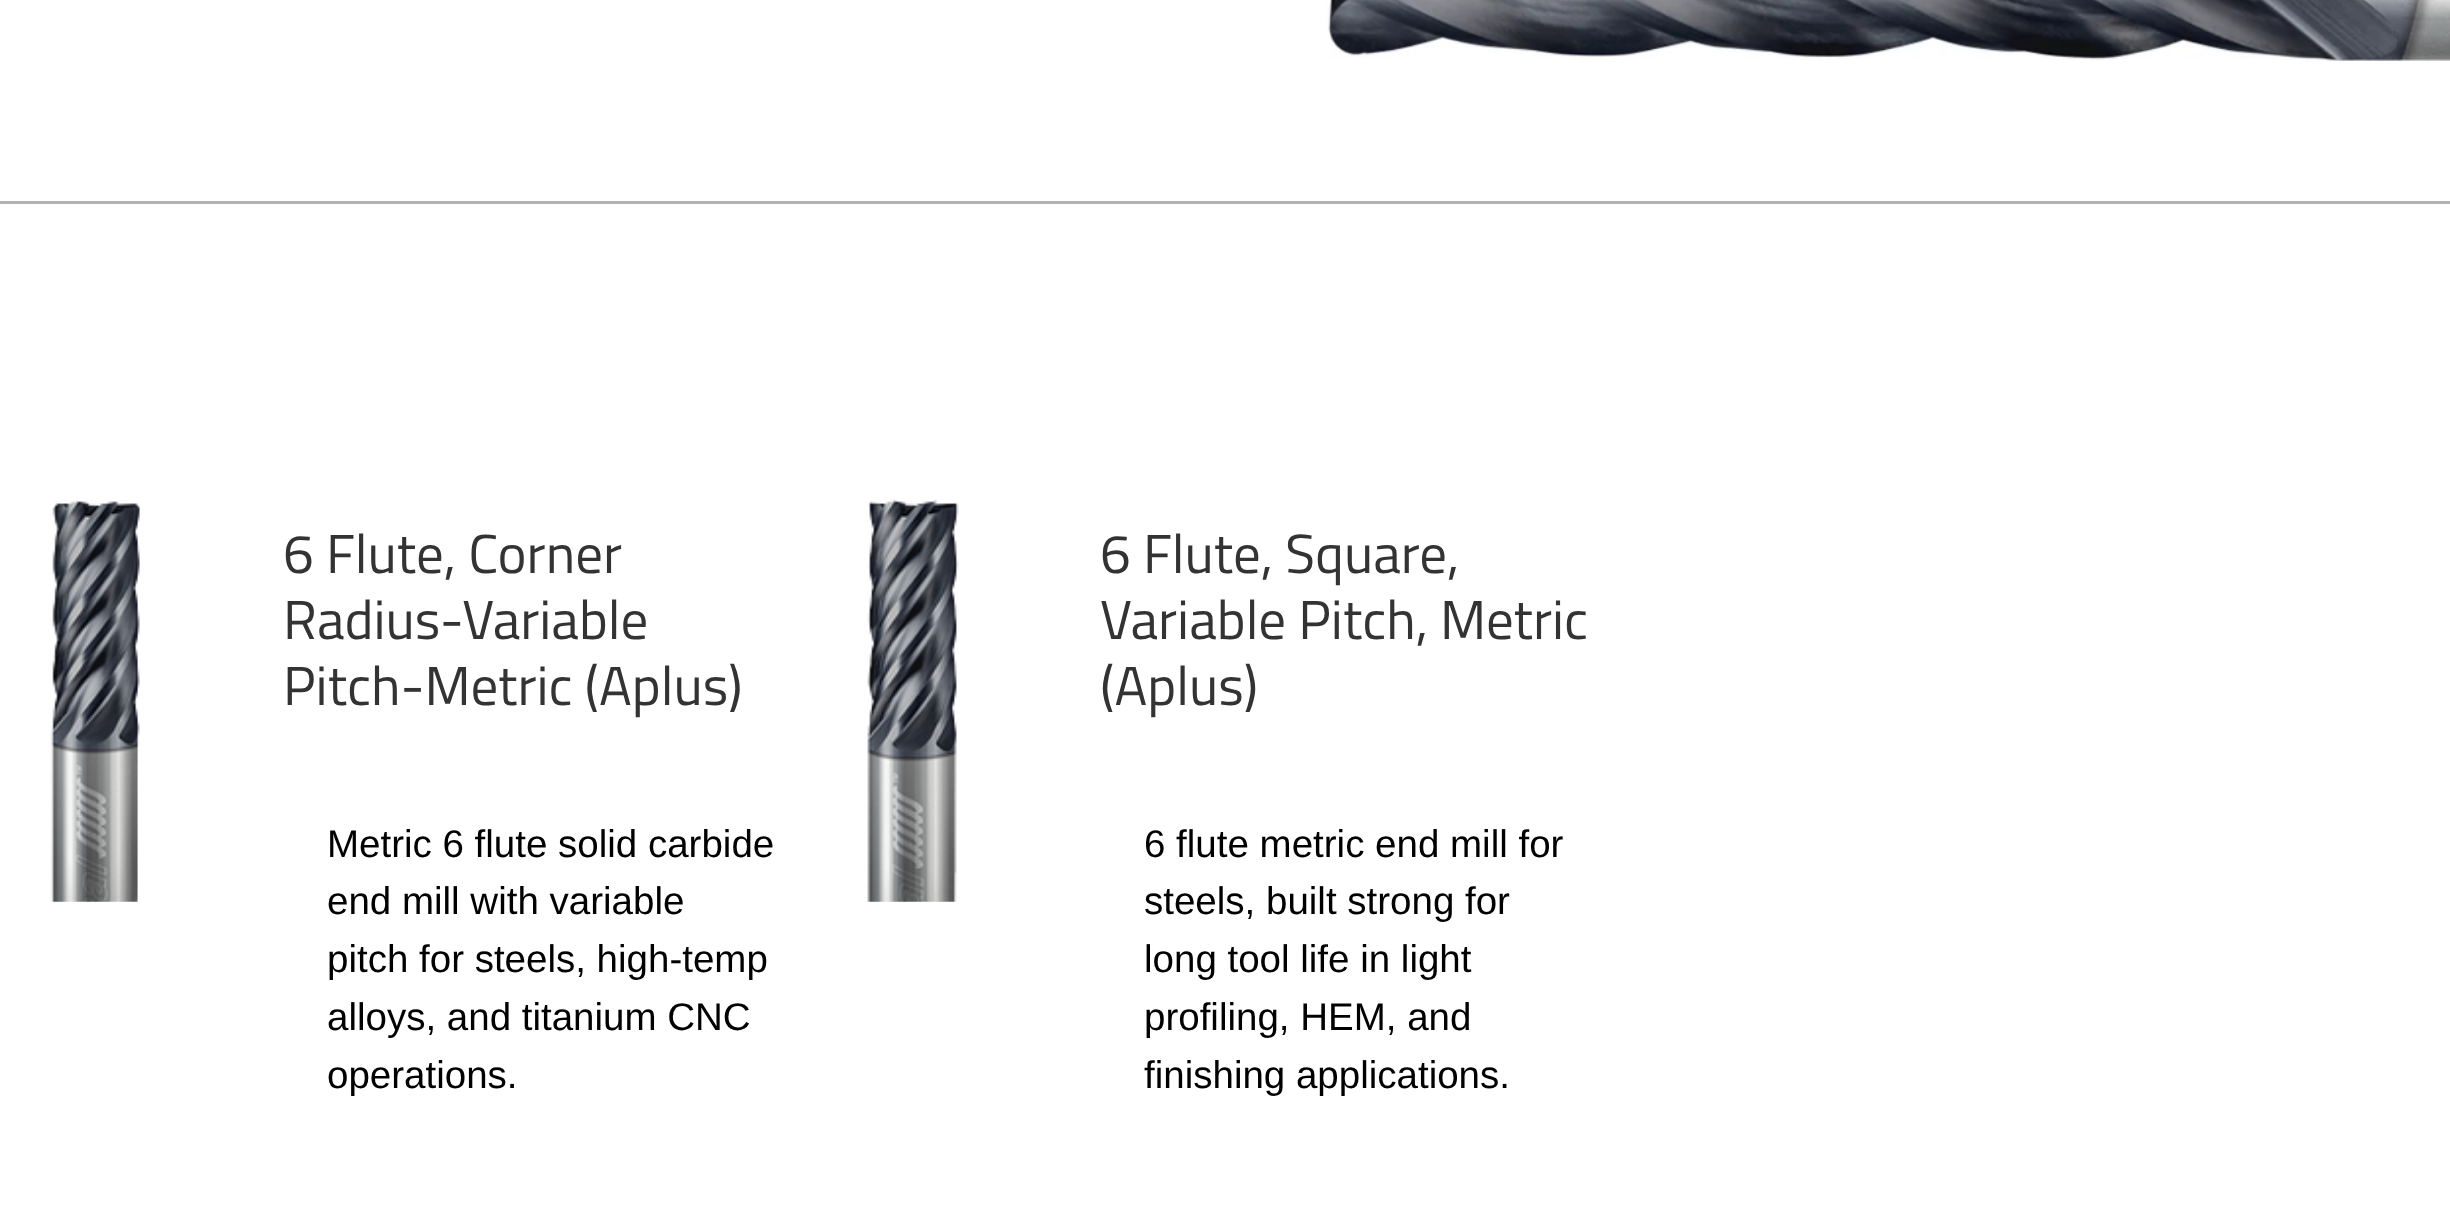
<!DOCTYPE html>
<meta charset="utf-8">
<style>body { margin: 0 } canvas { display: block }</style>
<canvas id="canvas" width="2450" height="1215"></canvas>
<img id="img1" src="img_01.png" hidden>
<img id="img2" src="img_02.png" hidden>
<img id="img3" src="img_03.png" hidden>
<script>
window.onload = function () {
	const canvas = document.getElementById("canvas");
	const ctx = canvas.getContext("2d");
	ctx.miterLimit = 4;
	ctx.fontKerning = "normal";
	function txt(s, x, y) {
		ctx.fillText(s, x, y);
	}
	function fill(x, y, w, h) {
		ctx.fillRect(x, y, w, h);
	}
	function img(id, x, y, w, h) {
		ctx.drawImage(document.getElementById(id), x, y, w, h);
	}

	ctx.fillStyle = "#FFFFFF";
	fill(0, 0, 2450, 1215);
	ctx.fillStyle = "#B2B2B2";
	fill(0, 201, 2450, 3);
	img("img1", 1325, 0, 1125, 63);
	img("img2", 50, 499, 90, 403);
	img("img3", 867, 499, 92, 403);
	ctx.font = "55px Titillium Web";
	ctx.fillStyle = "#333333";
	txt("6 Flute, Corner", 283, 573);
	txt("Radius-Variable", 283, 639);
	txt("Pitch-Metric (Aplus)", 283, 705);
	ctx.font = "38.5px Arimo";
	ctx.fillStyle = "#000000";
	txt("Metric 6 flute solid carbide", 327, 857);
	txt("end mill with variable", 327, 914);
	txt("pitch for steels, high-temp", 327, 972);
	txt("alloys, and titanium CNC", 327, 1030);
	txt("operations.", 327, 1088);
	ctx.font = "55px Titillium Web";
	ctx.fillStyle = "#333333";
	txt("6 Flute, Square,", 1100, 573);
	txt("Variable Pitch, Metric", 1100, 639);
	txt("(Aplus)", 1100, 705);
	ctx.font = "38.5px Arimo";
	ctx.fillStyle = "#000000";
	txt("6 flute metric end mill for", 1144, 857);
	txt("steels, built strong for", 1144, 914);
	txt("long tool life in light", 1144, 972);
	txt("profiling, HEM, and", 1144, 1030);
	txt("finishing applications.", 1144, 1088);
};
</script>
